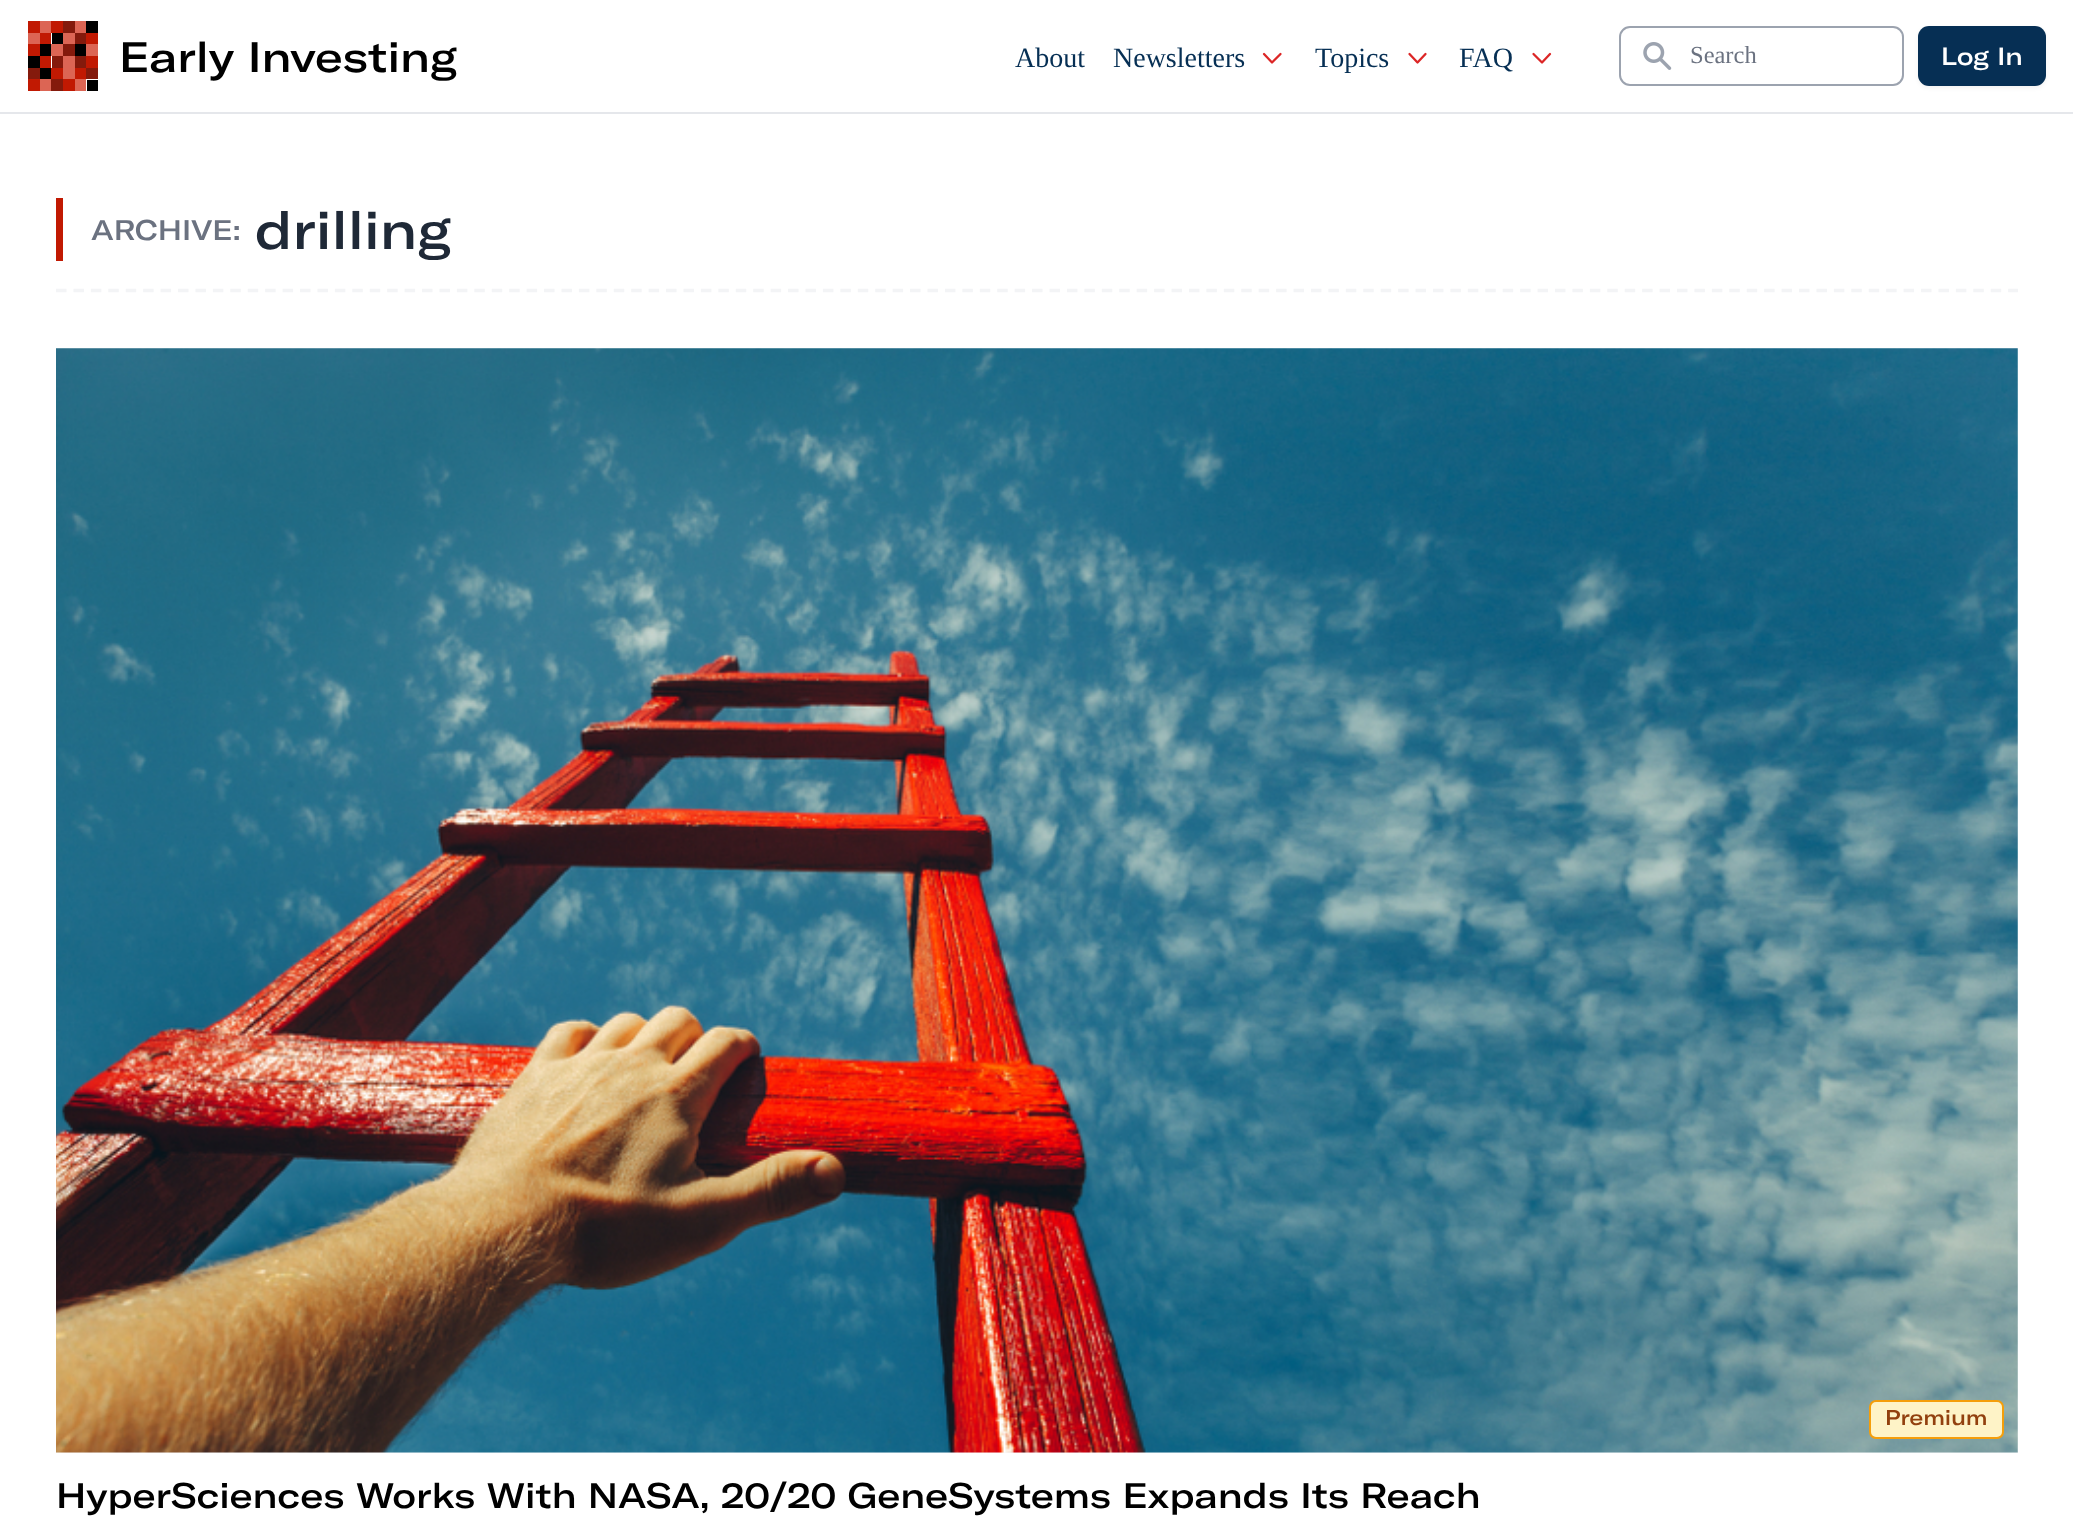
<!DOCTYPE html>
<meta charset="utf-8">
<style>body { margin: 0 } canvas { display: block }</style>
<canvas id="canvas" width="2073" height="1521"></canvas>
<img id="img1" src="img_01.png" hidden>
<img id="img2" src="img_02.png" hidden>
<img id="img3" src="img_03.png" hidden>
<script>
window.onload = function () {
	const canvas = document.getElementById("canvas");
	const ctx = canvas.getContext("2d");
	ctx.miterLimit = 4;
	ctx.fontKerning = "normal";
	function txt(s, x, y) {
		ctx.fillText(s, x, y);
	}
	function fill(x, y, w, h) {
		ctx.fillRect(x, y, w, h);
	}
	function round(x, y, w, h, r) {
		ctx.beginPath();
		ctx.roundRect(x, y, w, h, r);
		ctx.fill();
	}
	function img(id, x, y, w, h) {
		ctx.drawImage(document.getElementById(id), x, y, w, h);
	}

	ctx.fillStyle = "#FFFFFF";
	fill(0, 0, 2073, 1521);
	ctx.fillStyle = "#E5E7EB";
	fill(0, 112, 2073, 2);
	img("img1", 28, 21, 70, 70);
	ctx.beginPath();
	ctx.moveTo(1280.5, 54);
	ctx.lineTo(1272, 62.5);
	ctx.lineTo(1264, 54);
	ctx.strokeStyle = "#DC2626";
	ctx.lineWidth = 2.3;
	ctx.lineCap = "round";
	ctx.lineJoin = "round";
	ctx.stroke();
	ctx.beginPath();
	ctx.moveTo(1425.5, 54);
	ctx.lineTo(1417.5, 62.5);
	ctx.lineTo(1409.5, 54);
	ctx.stroke();
	ctx.beginPath();
	ctx.moveTo(1550, 54);
	ctx.lineTo(1542, 62.5);
	ctx.lineTo(1533.5, 54);
	ctx.stroke();
	ctx.beginPath();
	ctx.roundRect(1620, 27, 283, 58, 10);
	ctx.strokeStyle = "#9CA3AF";
	ctx.lineWidth = 2;
	ctx.lineJoin = "miter";
	ctx.stroke();
	img("img2", 1643, 42, 29, 28);
	ctx.fillStyle = "rgba(0, 0, 0, 0.05)";
	ctx.filter = "blur(2px)";
	ctx.beginPath();
	ctx.roundRect(1918, 28, 128, 60, 11);
	ctx.fill();
	ctx.filter = "none";
	ctx.fillStyle = "#062F54";
	round(1918, 26, 128, 60, 11);
	ctx.beginPath();
	ctx.moveTo(56, 290.5);
	ctx.lineTo(2018, 290.5);
	ctx.strokeStyle = "#F3F4F6";
	ctx.lineWidth = 3.5;
	ctx.lineCap = "butt";
	ctx.setLineDash([10.5, 6.93]);
	ctx.stroke();
	ctx.fillStyle = "#C11902";
	fill(56, 198, 7, 63);
	ctx.fillStyle = "#F3F4F6";
	fill(56, 348, 1962, 1105);
	img("img3", 56, 348, 1962, 1105);
	ctx.fillStyle = "#FEF3C7";
	ctx.beginPath();
	ctx.roundRect(1870, 1401, 133, 37, 6);
	ctx.fill();
	ctx.strokeStyle = "#F59E0B";
	ctx.lineWidth = 2;
	ctx.setLineDash([]);
	ctx.stroke();
	ctx.font = "500 42px GT America";
	ctx.fillStyle = "#000000";
	txt("Early Investing", 119, 72);
	ctx.font = "28px Liberation Serif";
	ctx.fillStyle = "#062F54";
	txt("About", 1015, 67);
	txt("Newsletters", 1113, 67);
	txt("Topics", 1315, 67);
	txt("FAQ", 1459, 67);
	ctx.font = "24.5px Liberation Serif";
	ctx.fillStyle = "#6B7280";
	txt("Search", 1690, 63);
	ctx.font = "500 24.5px GT America";
	ctx.fillStyle = "#FFFFFF";
	txt("Log In", 1941, 65);
	ctx.font = "500 28px GT America";
	ctx.fillStyle = "#6B7280";
	txt("ARCHIVE:", 91, 240);
	ctx.font = "500 52.5px GT America";
	ctx.fillStyle = "#1F2937";
	txt("drilling", 255, 249);
	ctx.font = "500 21px GT America";
	ctx.fillStyle = "#92400E";
	txt("Premium", 1885, 1425);
	ctx.font = "500 35px GT America";
	ctx.fillStyle = "#000000";
	txt("HyperSciences Works With NASA, 20/20 GeneSystems Expands Its Reach", 56, 1508);
};
</script>
